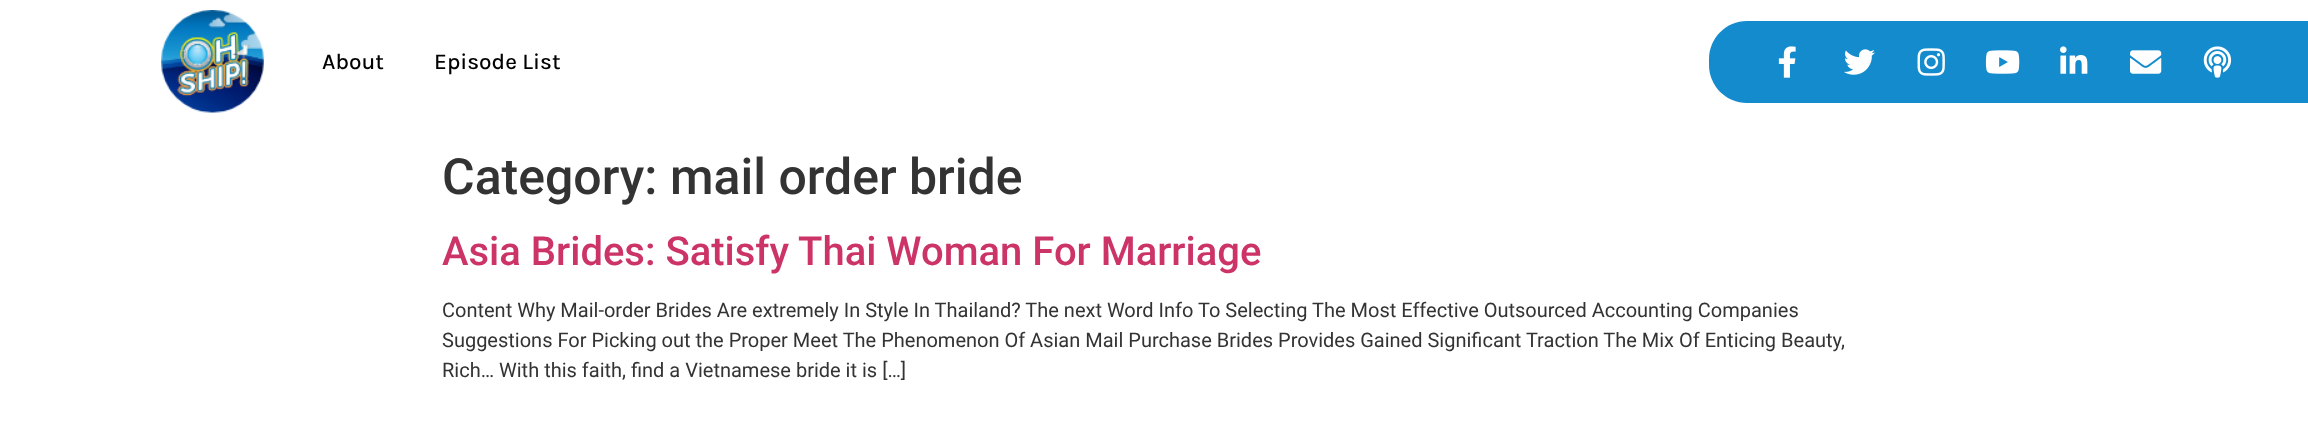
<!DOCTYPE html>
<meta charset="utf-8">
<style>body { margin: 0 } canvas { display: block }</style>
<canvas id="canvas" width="2308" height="443"></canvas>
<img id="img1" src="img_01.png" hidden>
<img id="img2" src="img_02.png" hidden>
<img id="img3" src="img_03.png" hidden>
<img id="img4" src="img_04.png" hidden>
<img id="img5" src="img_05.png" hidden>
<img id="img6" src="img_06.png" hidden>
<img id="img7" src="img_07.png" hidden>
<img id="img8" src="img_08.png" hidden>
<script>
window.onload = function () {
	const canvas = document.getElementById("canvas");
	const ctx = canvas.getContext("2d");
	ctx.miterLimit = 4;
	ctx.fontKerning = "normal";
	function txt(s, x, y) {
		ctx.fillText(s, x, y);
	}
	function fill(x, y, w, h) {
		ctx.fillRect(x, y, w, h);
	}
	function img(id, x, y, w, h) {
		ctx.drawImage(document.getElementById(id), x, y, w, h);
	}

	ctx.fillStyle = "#FFFFFF";
	fill(0, 0, 2308, 443);
	img("img1", 161, 10, 103, 103);
	ctx.fillStyle = "#148BCD";
	ctx.beginPath();
	ctx.moveTo(1747, 21);
	ctx.lineTo(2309, 21);
	ctx.lineTo(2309, 103);
	ctx.lineTo(1747, 103);
	ctx.bezierCurveTo(1726, 103, 1709, 86, 1709, 65);
	ctx.lineTo(1709, 59);
	ctx.bezierCurveTo(1709, 38, 1726, 21, 1747, 21);
	ctx.closePath();
	ctx.fill();
	img("img2", 1778, 46, 18, 32);
	img("img3", 1844, 49, 31, 26);
	img("img4", 1917, 48, 28, 28);
	img("img5", 1985, 50, 35, 24);
	img("img6", 2060, 46, 28, 28);
	img("img7", 2130, 50, 32, 24);
	img("img8", 2203, 46, 29, 32);
	ctx.font = "500 22.5px Karla";
	ctx.fillStyle = "#000000";
	txt("About", 322, 69);
	txt("Episode List", 434, 69);
	ctx.font = "500 50px Roboto";
	ctx.fillStyle = "#333333";
	txt("Category: mail order bride", 442, 194);
	ctx.font = "500 40px Roboto";
	ctx.fillStyle = "#CC3366";
	txt("Asia Brides: Satisfy Thai Woman For Marriage", 442, 265);
	ctx.font = "20px Roboto";
	ctx.fillStyle = "#333333";
	txt("Content Why Mail-order Brides Are extremely In Style In Thailand? The next Word Info To Selecting The Most Effective Outsourced Accounting Companies", 442, 317);
	txt("Suggestions For Picking out the Proper Meet The Phenomenon Of Asian Mail Purchase Brides Provides Gained Significant Traction The Mix Of Enticing Beauty,", 442, 347);
	txt("Rich… With this faith, find a Vietnamese bride it is […]", 442, 377);
};
</script>
